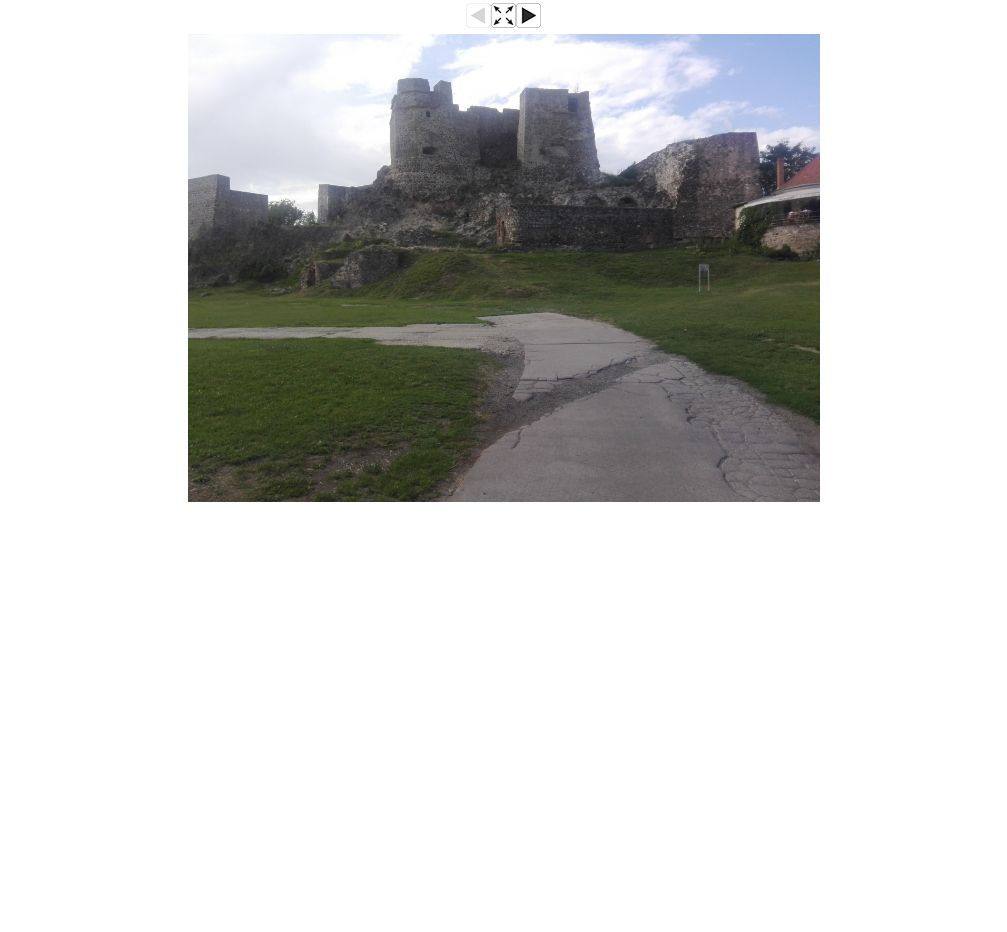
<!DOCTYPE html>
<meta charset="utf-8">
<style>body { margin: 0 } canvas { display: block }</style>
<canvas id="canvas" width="1007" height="932"></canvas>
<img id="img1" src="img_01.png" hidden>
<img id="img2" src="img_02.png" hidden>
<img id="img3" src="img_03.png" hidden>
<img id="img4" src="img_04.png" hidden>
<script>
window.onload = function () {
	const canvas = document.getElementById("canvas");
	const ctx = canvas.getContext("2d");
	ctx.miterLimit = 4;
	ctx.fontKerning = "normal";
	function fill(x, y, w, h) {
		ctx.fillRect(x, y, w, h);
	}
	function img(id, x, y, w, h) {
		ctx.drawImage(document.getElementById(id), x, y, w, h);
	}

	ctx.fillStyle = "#FFFFFF";
	fill(0, 0, 1007, 932);
	img("img1", 466, 3, 25, 25);
	img("img2", 491, 3, 25, 25);
	img("img3", 516, 3, 25, 25);
	img("img4", 188, 34, 632, 468);
};
</script>
